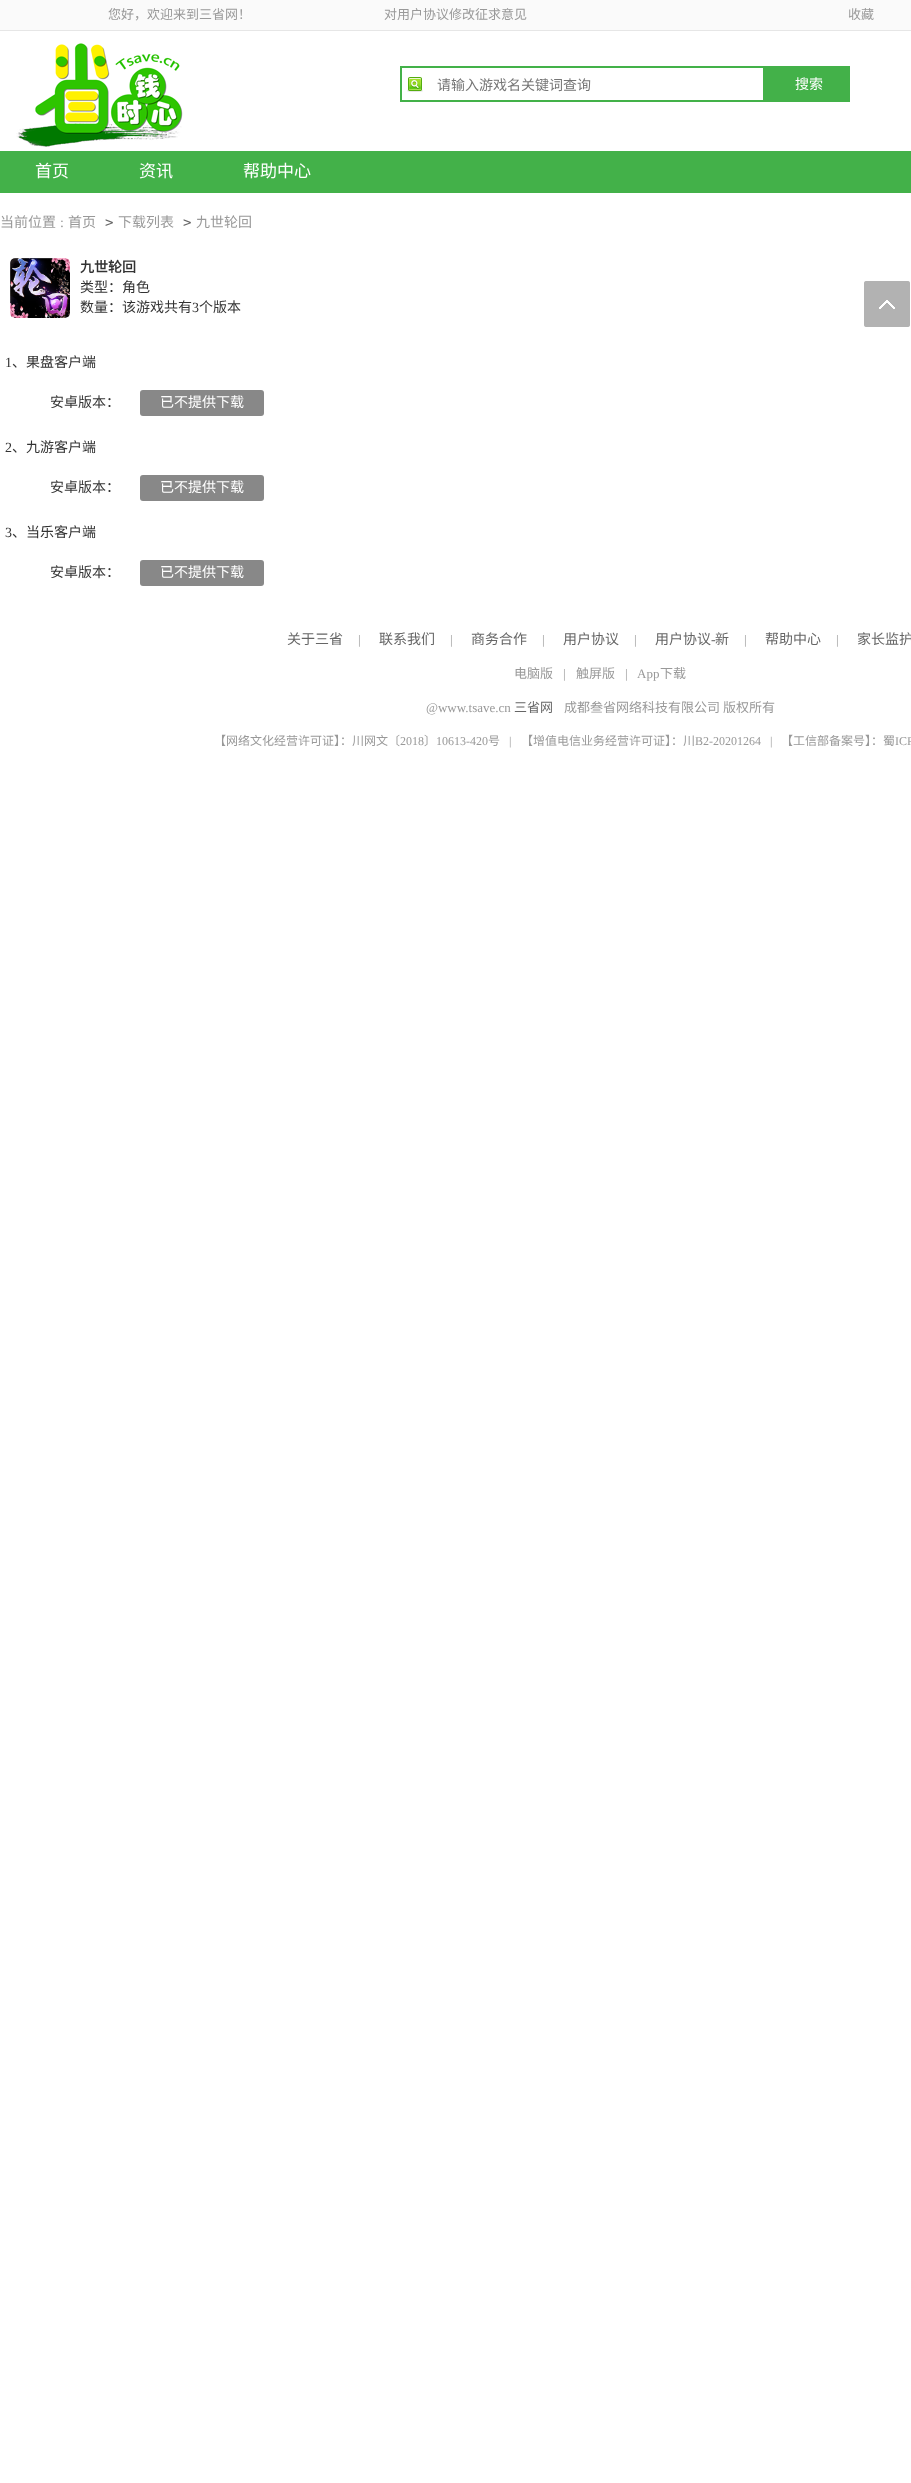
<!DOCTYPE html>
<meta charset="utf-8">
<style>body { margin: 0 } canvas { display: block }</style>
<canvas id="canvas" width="911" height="2483"></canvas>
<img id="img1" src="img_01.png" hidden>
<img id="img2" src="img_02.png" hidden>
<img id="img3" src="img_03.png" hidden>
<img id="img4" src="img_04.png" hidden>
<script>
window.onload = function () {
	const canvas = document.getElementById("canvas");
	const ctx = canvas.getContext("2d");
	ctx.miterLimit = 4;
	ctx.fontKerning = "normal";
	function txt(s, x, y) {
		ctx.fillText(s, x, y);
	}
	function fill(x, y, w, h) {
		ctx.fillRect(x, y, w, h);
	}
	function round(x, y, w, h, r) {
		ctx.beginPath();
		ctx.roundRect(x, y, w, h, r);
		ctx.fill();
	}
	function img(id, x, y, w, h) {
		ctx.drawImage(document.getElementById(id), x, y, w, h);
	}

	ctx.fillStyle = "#FFFFFF";
	fill(0, 0, 911, 2483);
	ctx.fillStyle = "#FAFAFA";
	fill(0, 0, 911, 30);
	ctx.fillStyle = "#E6E6E6";
	fill(0, 30, 911, 1);
	img("img1", 16, 43, 167, 104);
	ctx.strokeStyle = "#43B149";
	ctx.lineWidth = 2;
	ctx.strokeRect(401, 67, 448, 34);
	img("img2", 407, 77, 16, 15);
	ctx.fillStyle = "#43B149";
	fill(763, 68, 85, 32);
	fill(0, 151, 911, 42);
	img("img3", 10, 258, 60, 60);
	ctx.fillStyle = "#888888";
	round(140, 390, 124, 26, 3);
	round(140, 475, 124, 26, 3);
	round(140, 560, 124, 26, 3);
	img("img4", 864, 281, 46, 46);
	ctx.font = "13px Noto Sans CJK SC";
	ctx.fillStyle = "#999999";
	txt("您好，欢迎来到三省网！", 108, 19);
	txt("对用户协议修改征求意见", 384, 19);
	txt("收藏", 848, 19);
	ctx.font = "14px Noto Sans CJK SC";
	ctx.fillStyle = "#757575";
	txt("请输入游戏名关键词查询", 437, 90);
	ctx.fillStyle = "#FFFFFF";
	txt("搜索", 795, 89);
	ctx.font = "17px Noto Sans CJK SC";
	txt("首页", 35, 177);
	txt("资讯", 139, 177);
	txt("帮助中心", 243, 177);
	ctx.font = "14px Noto Sans CJK SC";
	ctx.fillStyle = "#999999";
	txt("当前位置", 0, 227);
	ctx.font = "14px Liberation Serif";
	txt(":", 60, 227);
	ctx.font = "14px Noto Sans CJK SC";
	txt("首页", 68, 227);
	ctx.font = "14px DejaVu Sans Mono";
	ctx.fillStyle = "#666666";
	txt(">", 105, 227);
	ctx.font = "14px Noto Sans CJK SC";
	ctx.fillStyle = "#999999";
	txt("下载列表", 118, 227);
	ctx.font = "14px DejaVu Sans Mono";
	ctx.fillStyle = "#666666";
	txt(">", 183, 227);
	ctx.font = "14px Noto Sans CJK SC";
	ctx.fillStyle = "#999999";
	txt("九世轮回", 196, 227);
	ctx.font = "bold 14px Noto Sans CJK SC";
	ctx.fillStyle = "#333333";
	txt("九世轮回", 80, 272);
	ctx.font = "14px Noto Sans CJK SC";
	txt("类型：角色", 80, 292);
	txt("数量：该游戏共有", 80, 312);
	ctx.font = "14px Liberation Serif";
	txt("3", 192, 312);
	ctx.font = "14px Noto Sans CJK SC";
	txt("个版本", 199, 312);
	ctx.font = "14px Liberation Serif";
	txt("1", 5, 367);
	ctx.font = "14px Noto Sans CJK SC";
	txt("、果盘客户端", 12, 367);
	txt("安卓版本：", 50, 407);
	ctx.fillStyle = "#FFFFFF";
	txt("已不提供下载", 160, 407);
	ctx.font = "14px Liberation Serif";
	ctx.fillStyle = "#333333";
	txt("2", 5, 452);
	ctx.font = "14px Noto Sans CJK SC";
	txt("、九游客户端", 12, 452);
	txt("安卓版本：", 50, 492);
	ctx.fillStyle = "#FFFFFF";
	txt("已不提供下载", 160, 492);
	ctx.font = "14px Liberation Serif";
	ctx.fillStyle = "#333333";
	txt("3", 5, 537);
	ctx.font = "14px Noto Sans CJK SC";
	txt("、当乐客户端", 12, 537);
	txt("安卓版本：", 50, 577);
	ctx.fillStyle = "#FFFFFF";
	txt("已不提供下载", 160, 577);
	ctx.fillStyle = "#666666";
	txt("关于三省", 287, 644);
	ctx.font = "13px Liberation Serif";
	ctx.fillStyle = "#999999";
	txt("|", 358, 644);
	ctx.font = "14px Noto Sans CJK SC";
	ctx.fillStyle = "#666666";
	txt("联系我们", 379, 644);
	ctx.font = "13px Liberation Serif";
	ctx.fillStyle = "#999999";
	txt("|", 450, 644);
	ctx.font = "14px Noto Sans CJK SC";
	ctx.fillStyle = "#666666";
	txt("商务合作", 471, 644);
	ctx.font = "13px Liberation Serif";
	ctx.fillStyle = "#999999";
	txt("|", 542, 644);
	ctx.font = "14px Noto Sans CJK SC";
	ctx.fillStyle = "#666666";
	txt("用户协议", 563, 644);
	ctx.font = "13px Liberation Serif";
	ctx.fillStyle = "#999999";
	txt("|", 634, 644);
	ctx.font = "14px Noto Sans CJK SC";
	ctx.fillStyle = "#666666";
	txt("用户协议", 655, 644);
	ctx.font = "14px Liberation Serif";
	txt("-", 711, 644);
	ctx.font = "14px Noto Sans CJK SC";
	txt("新", 715, 644);
	ctx.font = "13px Liberation Serif";
	ctx.fillStyle = "#999999";
	txt("|", 744, 644);
	ctx.font = "14px Noto Sans CJK SC";
	ctx.fillStyle = "#666666";
	txt("帮助中心", 765, 644);
	ctx.font = "13px Liberation Serif";
	ctx.fillStyle = "#999999";
	txt("|", 836, 644);
	ctx.font = "14px Noto Sans CJK SC";
	ctx.fillStyle = "#666666";
	txt("家长监护", 857, 644);
	ctx.font = "13px Noto Sans CJK SC";
	ctx.fillStyle = "#999999";
	txt("电脑版", 514, 678);
	ctx.font = "13px Liberation Serif";
	txt("|", 563, 678);
	ctx.font = "13px Noto Sans CJK SC";
	txt("触屏版", 576, 678);
	ctx.font = "13px Liberation Serif";
	txt("|", 625, 678);
	txt("App", 637, 678);
	ctx.font = "13px Noto Sans CJK SC";
	txt("下载", 660, 678);
	ctx.font = "13px Liberation Serif";
	txt("@www.tsave.cn", 426, 712);
	ctx.font = "13px Noto Sans CJK SC";
	ctx.fillStyle = "#666666";
	txt("三省网", 514, 712);
	ctx.fillStyle = "#999999";
	txt("成都叁省网络科技有限公司 版权所有", 564, 712);
	ctx.font = "12px Noto Sans CJK SC";
	txt("【网络文化经营许可证】：川网文〔", 214, 745);
	ctx.font = "12px Liberation Serif";
	txt("2018", 400, 745);
	ctx.font = "12px Noto Sans CJK SC";
	txt("〕", 424, 745);
	ctx.font = "12px Liberation Serif";
	txt("10613-420", 436, 745);
	ctx.font = "12px Noto Sans CJK SC";
	txt("号", 488, 745);
	ctx.font = "12px Liberation Serif";
	txt("|", 509, 745);
	ctx.font = "12px Noto Sans CJK SC";
	txt("【增值电信业务经营许可证】：川", 521, 745);
	ctx.font = "12px Liberation Serif";
	txt("B2-20201264   |", 695, 745);
	ctx.font = "12px Noto Sans CJK SC";
	txt("【工信部备案号】：蜀", 781, 745);
	ctx.font = "12px Liberation Serif";
	txt("ICP", 895, 745);
};
</script>
